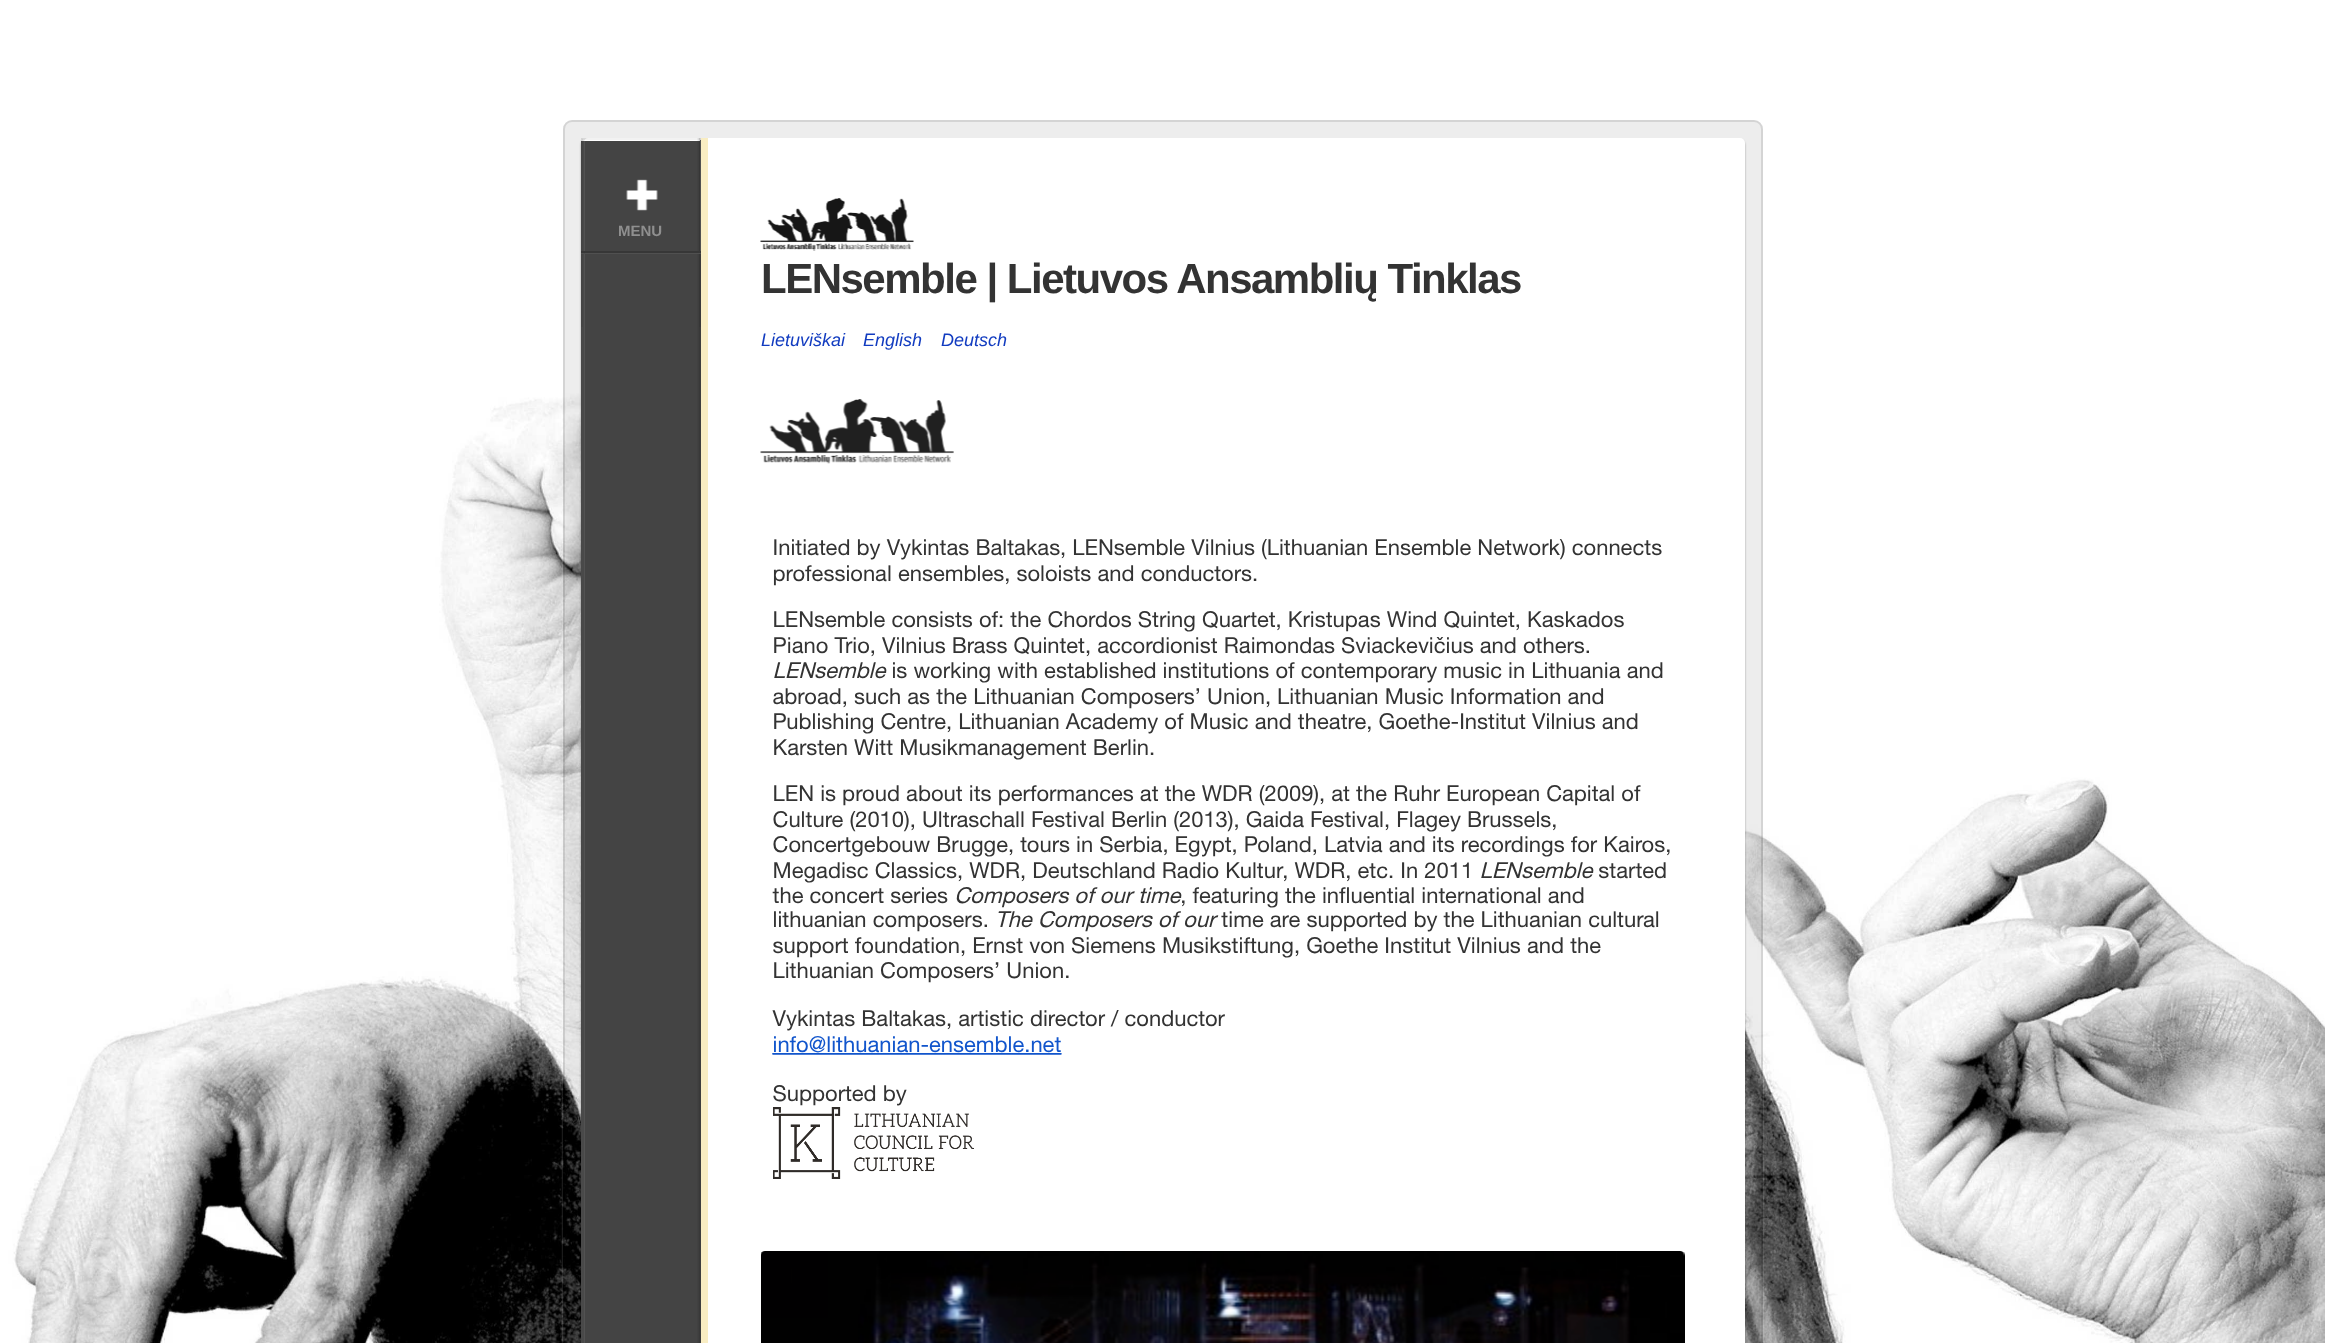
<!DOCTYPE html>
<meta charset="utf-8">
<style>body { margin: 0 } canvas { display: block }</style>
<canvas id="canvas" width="2325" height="1343"></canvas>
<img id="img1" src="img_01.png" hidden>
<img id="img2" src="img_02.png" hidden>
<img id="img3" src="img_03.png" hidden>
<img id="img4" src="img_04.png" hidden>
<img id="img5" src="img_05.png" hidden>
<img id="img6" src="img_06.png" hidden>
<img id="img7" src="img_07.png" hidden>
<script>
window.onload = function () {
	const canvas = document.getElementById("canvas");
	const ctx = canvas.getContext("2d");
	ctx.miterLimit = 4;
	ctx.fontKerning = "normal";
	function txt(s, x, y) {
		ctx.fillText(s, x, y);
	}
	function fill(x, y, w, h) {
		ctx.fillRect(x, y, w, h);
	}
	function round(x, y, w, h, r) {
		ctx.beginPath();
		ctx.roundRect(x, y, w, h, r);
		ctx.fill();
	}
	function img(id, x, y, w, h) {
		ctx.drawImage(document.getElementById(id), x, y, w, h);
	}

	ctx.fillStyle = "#FFFFFF";
	fill(0, 0, 2325, 1343);
	img("img1", 0, 0, 2325, 1343);
	ctx.save();
	ctx.beginPath();
	ctx.moveTo(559, 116);
	ctx.lineTo(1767, 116);
	ctx.lineTo(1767, 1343);
	ctx.lineTo(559, 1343);
	ctx.closePath();
	ctx.moveTo(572, 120);
	ctx.lineTo(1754, 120);
	ctx.bezierCurveTo(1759, 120, 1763, 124, 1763, 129);
	ctx.lineTo(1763, 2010);
	ctx.bezierCurveTo(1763, 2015, 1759, 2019, 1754, 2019);
	ctx.lineTo(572, 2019);
	ctx.bezierCurveTo(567, 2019, 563, 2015, 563, 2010);
	ctx.lineTo(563, 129);
	ctx.bezierCurveTo(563, 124, 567, 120, 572, 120);
	ctx.closePath();
	ctx.clip("evenodd");
	ctx.fillStyle = "rgba(255, 255, 255, 0.3)";
	ctx.filter = "blur(1px)";
	ctx.beginPath();
	ctx.roundRect(563, 120, 1200, 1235, 9);
	ctx.fill();
	ctx.filter = "none";
	ctx.restore();
	ctx.fillStyle = "rgba(0, 0, 0, 0.07)";
	round(563, 120, 1200, 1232, 9);
	ctx.beginPath();
	ctx.roundRect(564, 121, 1198, 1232, 8);
	ctx.strokeStyle = "rgba(0, 0, 0, 0.1)";
	ctx.lineWidth = 2;
	ctx.stroke();
	ctx.fillStyle = "rgba(0, 0, 0, 0.3)";
	ctx.filter = "blur(1px)";
	ctx.beginPath();
	ctx.roundRect(581, 140, 1164, 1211, 5);
	ctx.fill();
	ctx.filter = "none";
	ctx.fillStyle = "#FFFFFF";
	round(581, 138, 1164, 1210, 5);
	ctx.fillStyle = "#444444";
	fill(581, 141, 120, 1202);
	ctx.fillStyle = "rgba(255, 255, 255, 0.08)";
	ctx.beginPath();
	ctx.moveTo(586, 138);
	ctx.bezierCurveTo(583, 138, 581, 140, 581, 143);
	ctx.lineTo(581, 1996);
	ctx.bezierCurveTo(581, 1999, 583, 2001, 586, 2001);
	ctx.lineTo(590, 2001);
	ctx.bezierCurveTo(587, 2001, 585, 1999, 585, 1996);
	ctx.lineTo(585, 142);
	ctx.bezierCurveTo(585, 140, 587, 138, 590, 138);
	ctx.closePath();
	ctx.fill();
	ctx.fillStyle = "rgba(0, 0, 0, 0.1)";
	ctx.beginPath();
	ctx.moveTo(586, 138);
	ctx.bezierCurveTo(583, 138, 581, 140, 581, 143);
	ctx.lineTo(581, 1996);
	ctx.bezierCurveTo(581, 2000, 585, 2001, 588, 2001);
	ctx.bezierCurveTo(586, 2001, 584, 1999, 584, 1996);
	ctx.lineTo(584, 142);
	ctx.bezierCurveTo(584, 140, 586, 138, 588, 138);
	ctx.closePath();
	ctx.fill();
	ctx.fillStyle = "#F9EDC2";
	fill(701, 138, 7, 1205);
	img("img2", 697, 138, 4, 1205);
	ctx.fillStyle = "rgba(0, 0, 0, 0.05)";
	fill(699, 138, 2, 189);
	fill(581, 138, 120, 2);
	fill(581, 138, 2, 189);
	ctx.fillStyle = "#505050";
	ctx.beginPath();
	ctx.moveTo(581, 252);
	ctx.lineTo(581, 254);
	ctx.lineTo(701, 254);
	ctx.lineTo(701, 140);
	ctx.lineTo(700, 140);
	ctx.lineTo(700, 252);
	ctx.closePath();
	ctx.fill();
	img("img3", 626, 179, 32, 32);
	ctx.fillStyle = "#373737";
	fill(581, 251, 120, 2);
	img("img4", 760, 198, 154, 53);
	img("img5", 760, 399, 194, 65);
	img("img6", 772, 539, 898, 640);
	img("img7", 761, 1251, 924, 92);
	ctx.font = "bold 15px Liberation Sans";
	ctx.fillStyle = "#8F8F8F";
	txt("MENU", 618, 236);
	ctx.letterSpacing = "-1.5px";
	ctx.font = "bold 42px Liberation Sans";
	ctx.fillStyle = "#333333";
	txt("LENsemble | Lietuvos Ansamblių Tinklas", 761, 293);
	ctx.letterSpacing = "0px";
	ctx.font = "italic 18px Liberation Sans";
	ctx.fillStyle = "#123CC0";
	txt("Lietuviškai", 761, 346);
	txt("English", 863, 346);
	txt("Deutsch", 941, 346);
};
</script>
